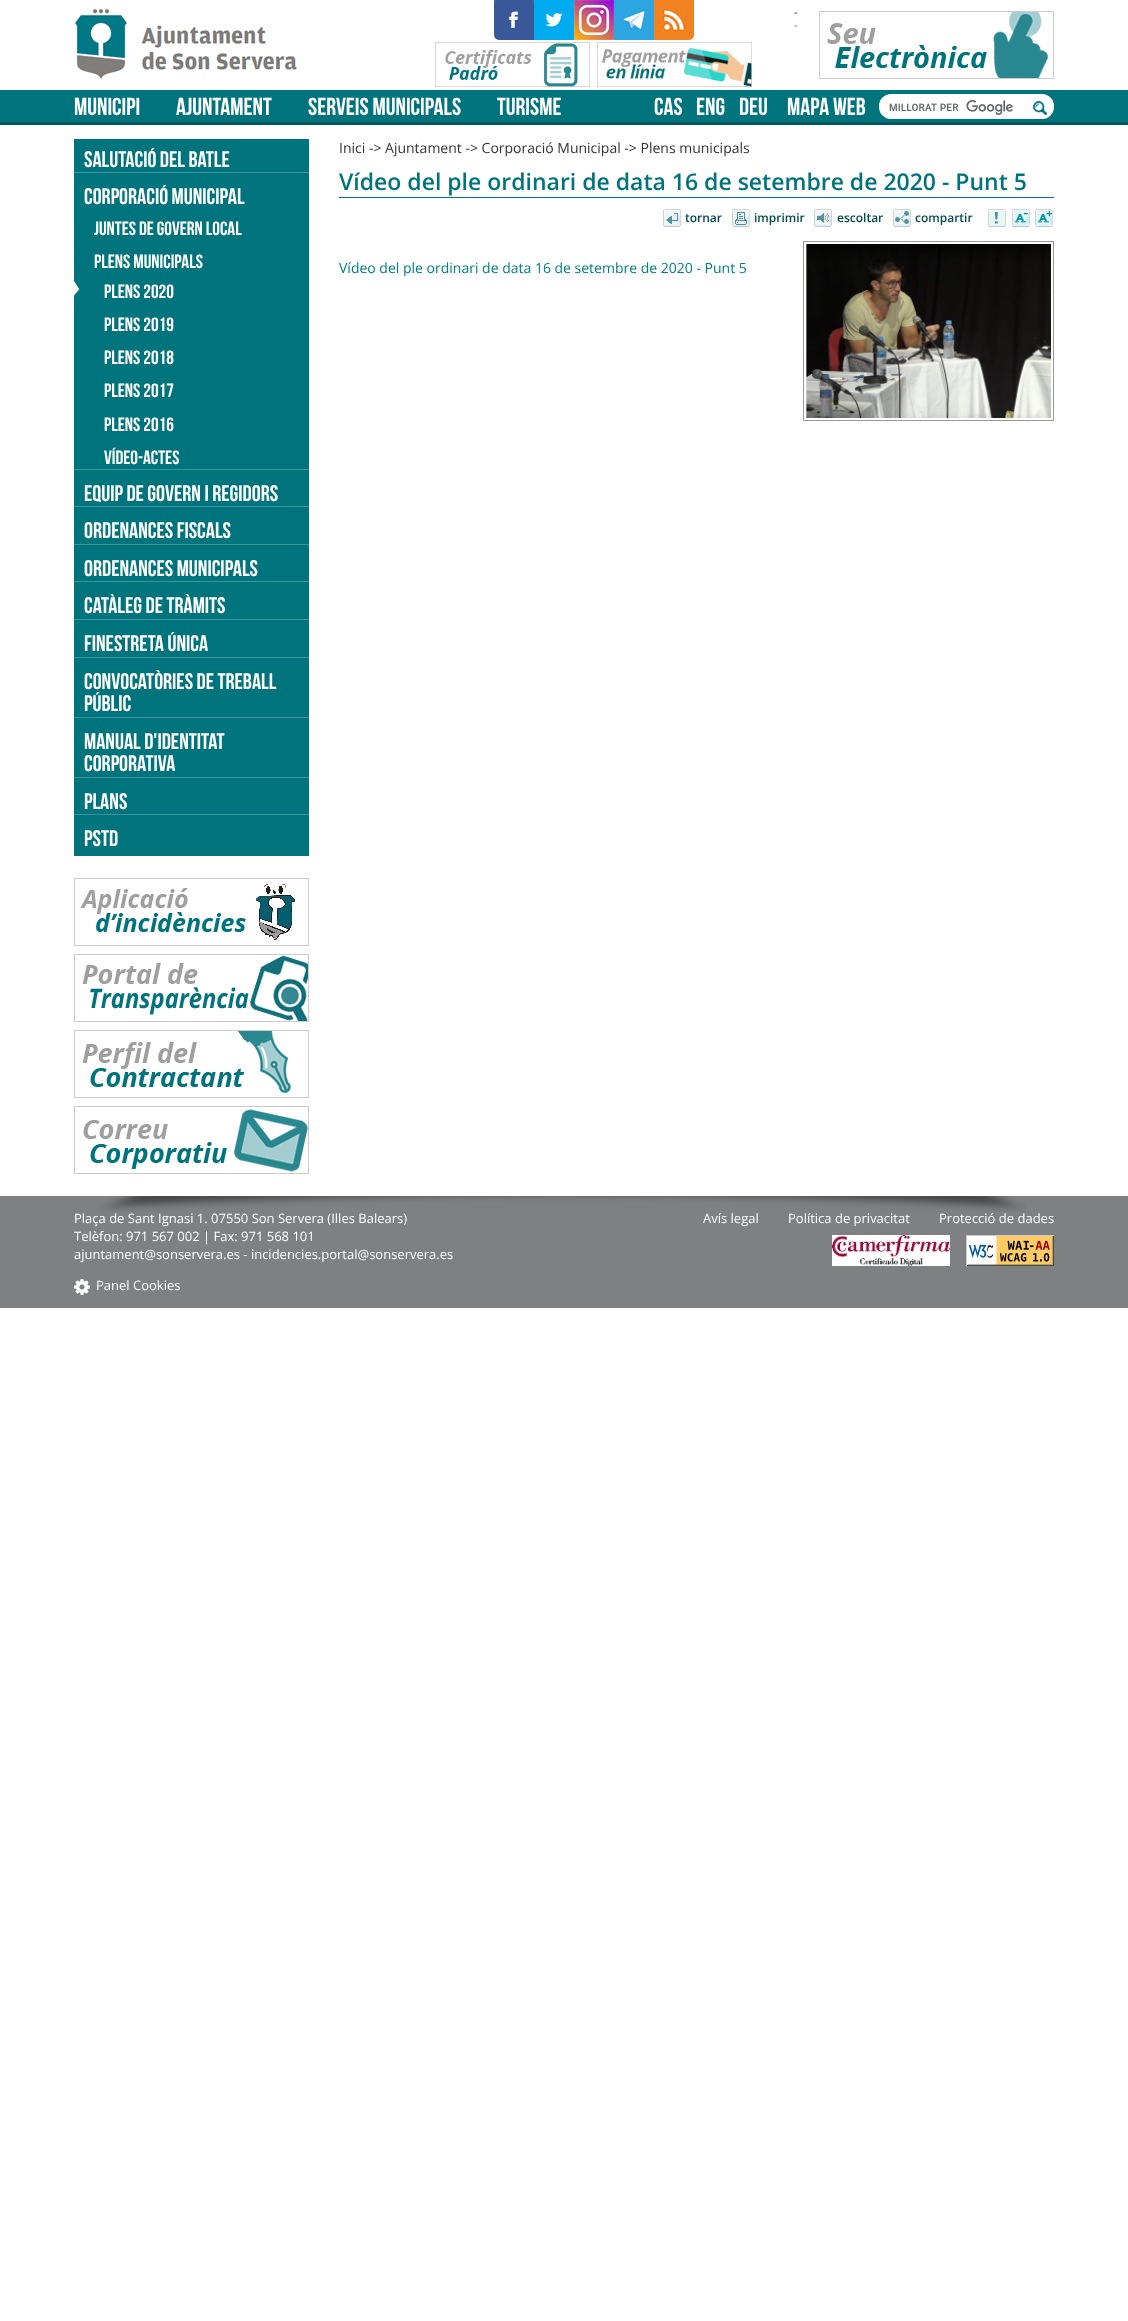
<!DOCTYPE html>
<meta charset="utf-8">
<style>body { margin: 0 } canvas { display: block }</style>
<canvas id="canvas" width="1128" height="2321"></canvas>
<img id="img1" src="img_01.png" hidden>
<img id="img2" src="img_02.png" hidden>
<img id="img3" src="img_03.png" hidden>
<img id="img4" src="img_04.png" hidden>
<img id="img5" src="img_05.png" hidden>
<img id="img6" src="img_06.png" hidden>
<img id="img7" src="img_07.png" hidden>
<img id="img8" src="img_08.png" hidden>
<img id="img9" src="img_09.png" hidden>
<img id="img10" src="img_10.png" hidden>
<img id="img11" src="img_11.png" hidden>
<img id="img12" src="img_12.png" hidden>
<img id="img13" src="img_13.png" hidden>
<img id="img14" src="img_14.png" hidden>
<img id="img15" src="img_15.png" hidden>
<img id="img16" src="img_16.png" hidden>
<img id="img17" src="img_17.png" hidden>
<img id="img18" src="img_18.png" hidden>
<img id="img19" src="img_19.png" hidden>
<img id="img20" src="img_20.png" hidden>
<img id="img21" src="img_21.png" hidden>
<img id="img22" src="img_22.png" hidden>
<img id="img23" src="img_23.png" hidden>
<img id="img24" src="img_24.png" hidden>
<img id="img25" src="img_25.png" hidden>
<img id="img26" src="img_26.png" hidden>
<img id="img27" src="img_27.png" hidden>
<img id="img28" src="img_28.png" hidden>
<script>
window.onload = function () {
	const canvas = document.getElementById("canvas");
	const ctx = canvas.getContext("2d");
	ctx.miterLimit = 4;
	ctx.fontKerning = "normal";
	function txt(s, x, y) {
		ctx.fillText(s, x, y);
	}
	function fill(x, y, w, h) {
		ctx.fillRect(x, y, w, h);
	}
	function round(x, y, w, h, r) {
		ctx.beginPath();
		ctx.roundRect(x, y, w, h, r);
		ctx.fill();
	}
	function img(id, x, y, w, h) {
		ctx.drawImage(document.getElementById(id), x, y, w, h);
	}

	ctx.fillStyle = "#FFFFFF";
	fill(0, 0, 1128, 2321);
	img("img1", 75, 9, 222, 70);
	img("img2", 494, 0, 40, 40);
	img("img3", 534, 0, 40, 40);
	img("img4", 574, 0, 40, 40);
	img("img5", 614, 0, 40, 40);
	img("img6", 654, 0, 40, 40);
	img("img7", 435, 42, 155, 45);
	img("img8", 597, 42, 155, 45);
	img("img9", 819, 11, 235, 68);
	ctx.fillStyle = "#00747D";
	fill(0, 90, 1128, 32);
	ctx.fillStyle = "#01585F";
	fill(0, 122, 1128, 3);
	ctx.fillStyle = "#FFFFFF";
	round(879, 94, 175, 25, 12);
	fill(889, 118, 2, 1);
	img("img10", 889, 100, 124, 15);
	img("img11", 1033, 101, 14, 14);
	ctx.fillStyle = "#00747D";
	fill(74, 139, 235, 717);
	ctx.fillStyle = "#3D949A";
	fill(74, 172, 235, 1);
	fill(74, 469, 235, 1);
	img("img12", 74, 281, 6, 15);
	fill(74, 506, 235, 1);
	fill(74, 544, 235, 1);
	fill(74, 581, 235, 1);
	fill(74, 619, 235, 1);
	fill(74, 657, 235, 1);
	fill(74, 717, 235, 1);
	fill(74, 777, 235, 1);
	fill(74, 814, 235, 1);
	img("img13", 74, 878, 235, 68);
	img("img14", 74, 954, 235, 68);
	img("img15", 74, 1030, 235, 68);
	img("img16", 74, 1106, 235, 68);
	ctx.fillStyle = "#00747D";
	fill(339, 197, 715, 1);
	img("img17", 662, 209, 20, 18);
	img("img18", 731, 209, 20, 18);
	img("img19", 814, 209, 19, 18);
	img("img20", 893, 209, 19, 18);
	img("img21", 988, 209, 18, 18);
	img("img22", 1011, 209, 20, 18);
	img("img23", 1034, 209, 20, 18);
	ctx.strokeStyle = "#999999";
	ctx.strokeRect(803.5, 241.5, 250, 179);
	img("img24", 806, 244, 245, 174);
	ctx.fillStyle = "#7E8082";
	fill(0, 1196, 1128, 112);
	img("img25", 100, 1196, 926, 16);
	img("img26", 74, 1279, 16, 16);
	img("img27", 832, 1235, 118, 31);
	img("img28", 966, 1235, 88, 31);
	ctx.font = "600 11px Open Sans";
	ctx.fillStyle = "#666666";
	txt("-", 794, 16);
	ctx.fillStyle = "#999999";
	txt("-", 794, 29);
	ctx.font = "24.5px Bebas Neue";
	ctx.fillStyle = "#FFFFFF";
	txt("MUNICIPI", 74, 115);
	txt("AJUNTAMENT", 176, 115);
	txt("SERVEIS MUNICIPALS", 308, 115);
	txt("TURISME", 497, 115);
	txt("CAS", 654, 115);
	txt("ENG", 696, 115);
	txt("DEU", 739, 115);
	txt("MAPA WEB", 787, 115);
	ctx.font = "22.5px Bebas Neue";
	txt("SALUTACIÓ DEL BATLE", 84, 167);
	txt("CORPORACIÓ MUNICIPAL", 84, 204);
	ctx.font = "19.25px Bebas Neue";
	txt("JUNTES DE GOVERN LOCAL", 94, 235);
	txt("PLENS MUNICIPALS", 94, 268);
	txt("PLENS 2020", 104, 298);
	txt("PLENS 2019", 104, 331);
	txt("PLENS 2018", 104, 364);
	txt("PLENS 2017", 104, 397);
	txt("PLENS 2016", 104, 431);
	txt("VÍDEO-ACTES", 104, 464);
	ctx.font = "22.5px Bebas Neue";
	txt("EQUIP DE GOVERN I REGIDORS", 84, 501);
	txt("ORDENANCES FISCALS", 84, 538);
	txt("ORDENANCES MUNICIPALS", 84, 576);
	txt("CATÀLEG DE TRÀMITS", 84, 613);
	txt("FINESTRETA ÚNICA", 84, 651);
	txt("CONVOCATÒRIES DE TREBALL", 84, 689);
	txt("PÚBLIC", 84, 711);
	txt("MANUAL D'IDENTITAT", 84, 749);
	txt("CORPORATIVA", 84, 771);
	txt("PLANS", 84, 809);
	txt("PSTD", 84, 846);
	ctx.font = "14px Open Sans";
	ctx.fillStyle = "#333333";
	txt("Inici -> Ajuntament -> Corporació Municipal -> Plens municipals", 339, 153);
	ctx.font = "600 23px Open Sans";
	ctx.fillStyle = "#00747D";
	txt("Vídeo del ple ordinari de data 16 de setembre de 2020 - Punt 5", 339, 190);
	ctx.font = "600 12px Open Sans";
	ctx.fillStyle = "#014B4B";
	txt("tornar", 685, 222);
	txt("imprimir", 754, 222);
	txt("escoltar", 837, 222);
	txt("compartir", 915, 222);
	ctx.font = "14px Open Sans";
	ctx.fillStyle = "#008080";
	txt("Vídeo del ple ordinari de data 16 de setembre de 2020 - Punt 5", 339, 273);
	ctx.font = "13px Open Sans";
	ctx.fillStyle = "#FFFFFF";
	txt("Plaça de Sant Ignasi 1. 07550 Son Servera (Illes Balears)", 74, 1223);
	txt("Telèfon: 971 567 002 | Fax: 971 568 101", 74, 1241);
	txt("ajuntament@sonservera.es - incidencies.portal@sonservera.es", 74, 1259);
	txt("Panel Cookies", 96, 1290);
	txt("Avís legal", 703, 1223);
	txt("Política de privacitat", 788, 1223);
	txt("Protecció de dades", 939, 1223);
};
</script>
